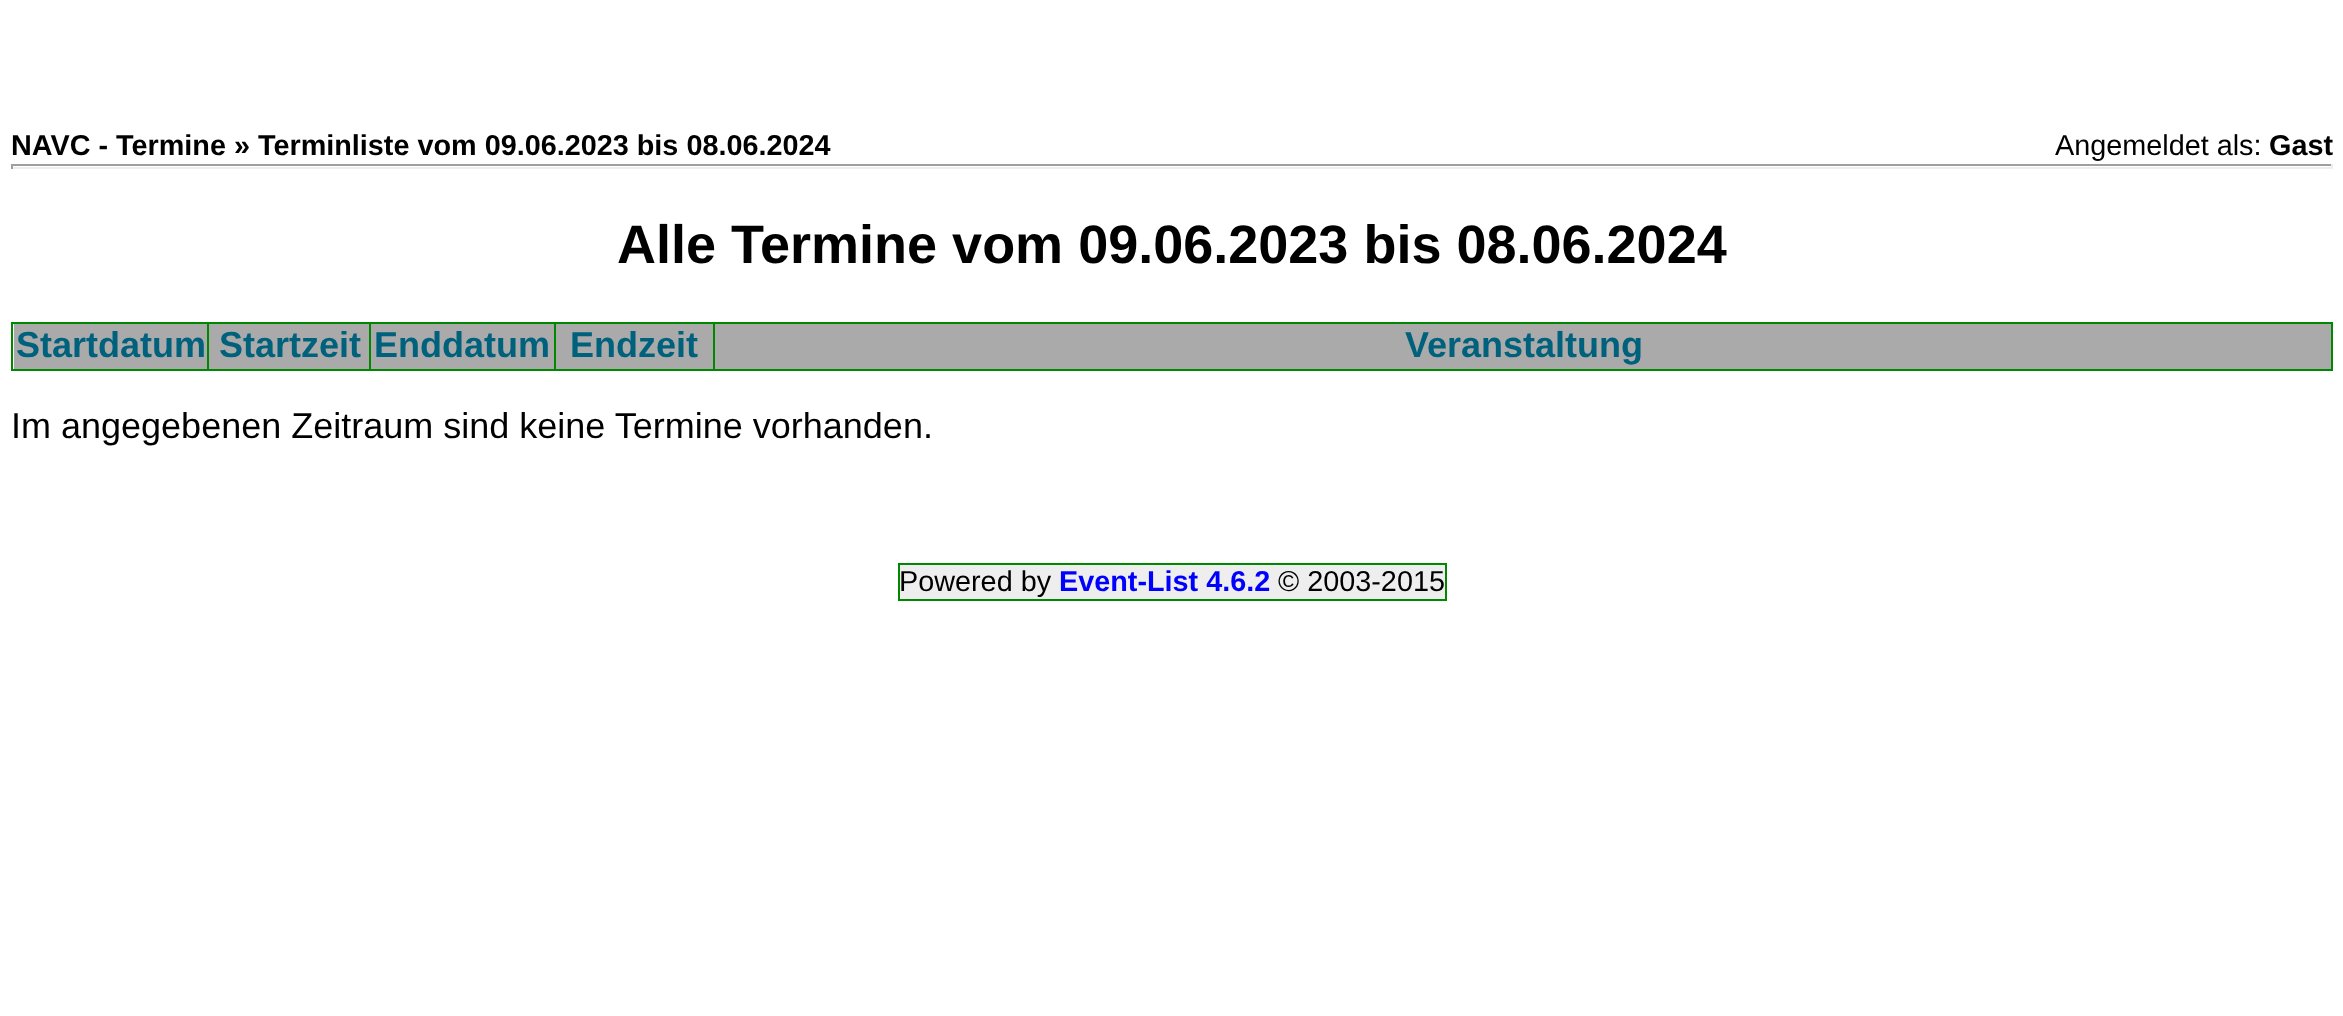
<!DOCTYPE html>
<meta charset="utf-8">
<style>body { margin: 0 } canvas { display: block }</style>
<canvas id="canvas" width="2343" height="1016"></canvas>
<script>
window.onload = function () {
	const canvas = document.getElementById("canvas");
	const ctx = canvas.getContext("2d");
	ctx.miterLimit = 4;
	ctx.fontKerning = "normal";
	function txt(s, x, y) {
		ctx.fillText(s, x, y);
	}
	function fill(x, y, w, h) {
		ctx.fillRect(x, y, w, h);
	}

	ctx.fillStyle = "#FFFFFF";
	fill(0, 0, 2343, 1016);
	ctx.fillStyle = "#9F9F9F";
	fill(11, 164, 2322, 2);
	ctx.fillStyle = "#EEEEEE";
	fill(2331, 164, 2, 5);
	fill(11, 167, 2322, 2);
	ctx.fillStyle = "#9F9F9F";
	fill(11, 164, 2, 5);
	ctx.fillStyle = "#008800";
	fill(11, 322, 2322, 2);
	fill(2331, 322, 2, 49);
	fill(11, 369, 2322, 2);
	fill(11, 322, 2, 49);
	ctx.fillStyle = "#AAAAAA";
	fill(14, 324, 193, 45);
	fill(209, 324, 160, 45);
	ctx.fillStyle = "#008800";
	fill(207, 322, 2, 49);
	ctx.fillStyle = "#AAAAAA";
	fill(371, 324, 183, 45);
	ctx.fillStyle = "#008800";
	fill(369, 322, 2, 49);
	ctx.fillStyle = "#AAAAAA";
	fill(556, 324, 1775, 45);
	ctx.fillStyle = "#008800";
	fill(554, 322, 2, 49);
	fill(713, 322, 2, 49);
	fill(898, 599, 373, 2);
	fill(898, 563, 549, 2);
	fill(898, 563, 2, 38);
	ctx.fillStyle = "#EEEEEE";
	fill(900, 565, 545, 34);
	ctx.fillStyle = "#008800";
	fill(1445, 563, 2, 38);
	fill(1271, 599, 176, 2);
	ctx.font = "bold 28.8px Liberation Sans";
	ctx.fillStyle = "#000000";
	txt("NAVC - Termine » Terminliste vom 09.06.2023 bis 08.06.2024", 11, 155);
	ctx.font = "28.8px Liberation Sans";
	txt("Angemeldet als:", 2055, 155);
	ctx.font = "bold 28.8px Liberation Sans";
	txt("Gast", 2269, 155);
	ctx.font = "bold 54px Liberation Sans";
	txt("Alle Termine vom 09.06.2023 bis 08.06.2024", 617, 263);
	ctx.font = "bold 36px Liberation Sans";
	ctx.fillStyle = "#00617D";
	txt("Startdatum", 16, 357);
	txt("Startzeit", 219, 357);
	txt("Enddatum", 374, 357);
	txt("Endzeit", 570, 357);
	txt("Veranstaltung", 1405, 357);
	ctx.font = "36px Liberation Sans";
	ctx.fillStyle = "#000000";
	txt("Im angegebenen Zeitraum sind keine Termine vorhanden.", 11, 438);
	ctx.font = "28.8px Liberation Sans";
	txt("Powered by", 899, 591);
	ctx.font = "bold 28.8px Liberation Sans";
	ctx.fillStyle = "#0000FF";
	txt("Event-List 4.6.2", 1059, 591);
	ctx.font = "28.8px Liberation Sans";
	ctx.fillStyle = "#000000";
	txt("© 2003-2015", 1278, 591);
};
</script>
